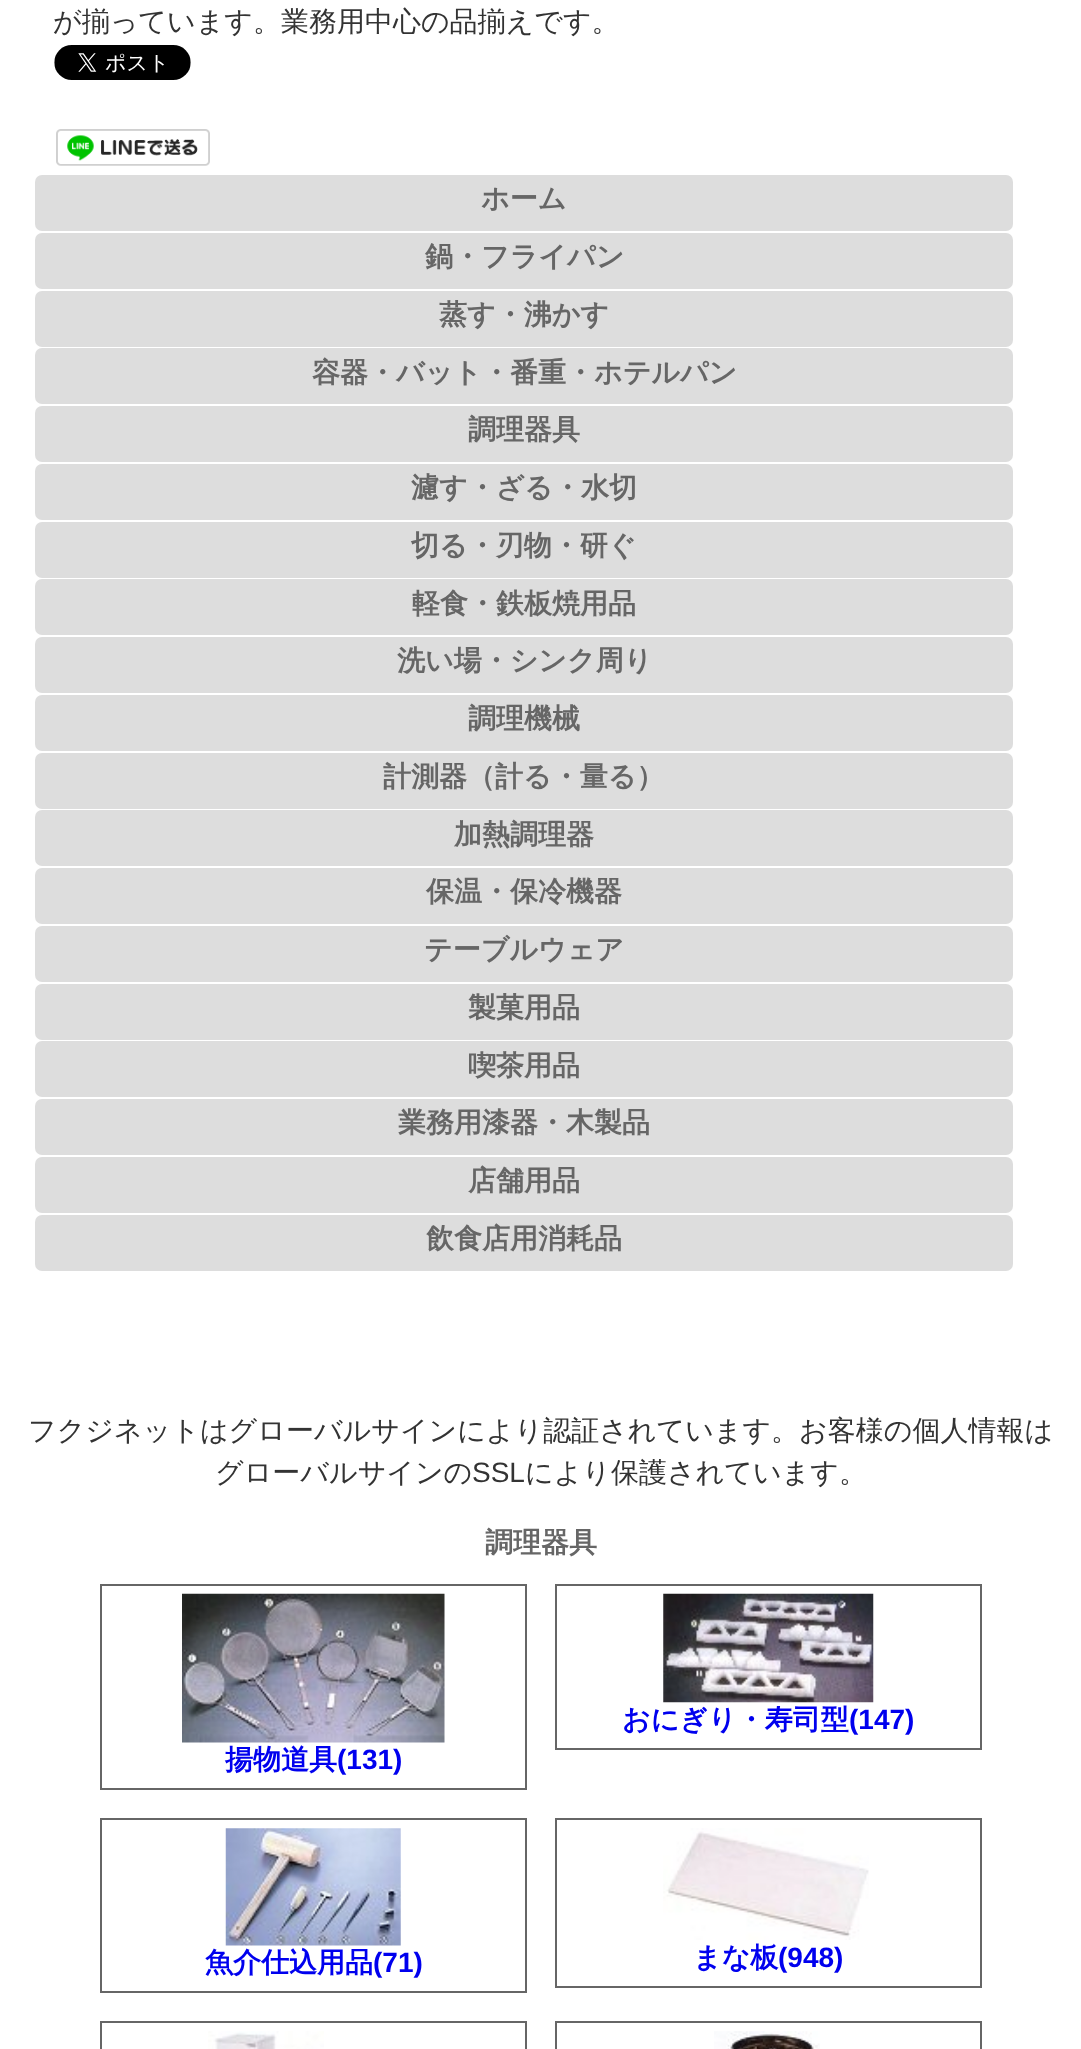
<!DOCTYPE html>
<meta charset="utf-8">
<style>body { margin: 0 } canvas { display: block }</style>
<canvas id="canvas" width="1081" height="2049"></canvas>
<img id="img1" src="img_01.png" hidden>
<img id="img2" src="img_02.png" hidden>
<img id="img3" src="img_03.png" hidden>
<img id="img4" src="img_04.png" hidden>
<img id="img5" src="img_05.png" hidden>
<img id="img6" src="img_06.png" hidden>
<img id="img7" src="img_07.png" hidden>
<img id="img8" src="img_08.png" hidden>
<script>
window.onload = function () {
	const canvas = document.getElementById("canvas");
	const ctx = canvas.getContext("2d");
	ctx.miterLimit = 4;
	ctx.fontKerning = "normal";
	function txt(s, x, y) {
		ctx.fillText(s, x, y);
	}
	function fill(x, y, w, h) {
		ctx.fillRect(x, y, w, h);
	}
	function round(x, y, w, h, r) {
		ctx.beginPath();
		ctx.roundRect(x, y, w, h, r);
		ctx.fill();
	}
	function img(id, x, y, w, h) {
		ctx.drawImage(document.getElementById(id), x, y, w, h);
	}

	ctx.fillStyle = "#FFFFFF";
	fill(0, 0, 1081, 2049);
	img("img1", 54, 45, 137, 35);
	img("img2", 56, 129, 154, 37);
	ctx.fillStyle = "#DDDDDD";
	round(35, 175, 978, 56, 7);
	round(35, 233, 978, 56, 7);
	round(35, 291, 978, 56, 7);
	round(35, 348, 978, 56, 7);
	round(35, 406, 978, 56, 7);
	round(35, 464, 978, 56, 7);
	round(35, 522, 978, 56, 7);
	round(35, 579, 978, 56, 7);
	round(35, 637, 978, 56, 7);
	round(35, 695, 978, 56, 7);
	round(35, 753, 978, 56, 7);
	round(35, 810, 978, 56, 7);
	round(35, 868, 978, 56, 7);
	round(35, 926, 978, 56, 7);
	round(35, 984, 978, 56, 7);
	round(35, 1041, 978, 56, 7);
	round(35, 1099, 978, 56, 7);
	round(35, 1157, 978, 56, 7);
	round(35, 1215, 978, 56, 7);
	ctx.strokeStyle = "#666666";
	ctx.lineWidth = 2;
	ctx.strokeRect(556, 1585, 425, 164);
	img("img3", 663, 1593, 211, 110);
	ctx.strokeRect(101, 1585, 425, 204);
	img("img4", 182, 1593, 263, 150);
	ctx.strokeRect(101, 1819, 425, 173);
	img("img5", 225, 1828, 176, 118);
	ctx.strokeRect(556, 1819, 425, 168);
	img("img6", 663, 1828, 206, 112);
	ctx.strokeRect(101, 2022, 425, 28);
	img("img7", 208, 2031, 116, 18);
	ctx.strokeRect(556, 2022, 425, 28);
	img("img8", 714, 2031, 106, 18);
	ctx.font = "500 28px WenQuanYi Zen Hei";
	ctx.fillStyle = "#333333";
	txt("が揃っています。業務用中心の品揃えです。", 53, 31);
	ctx.font = "bold 28px WenQuanYi Zen Hei";
	ctx.fillStyle = "#666666";
	txt("ホーム", 481, 208);
	txt("鍋・フライパン", 425, 266);
	txt("蒸す・沸かす", 439, 324);
	txt("容器・バット・番重・ホテルパン", 312, 382);
	txt("調理器具", 468, 439);
	txt("濾す・ざる・水切", 411, 497);
	txt("切る・刃物・研ぐ", 411, 555);
	txt("軽食・鉄板焼用品", 412, 613);
	txt("洗い場・シンク周り", 397, 670);
	txt("調理機械", 468, 728);
	txt("計測器（計る・量る）", 383, 786);
	txt("加熱調理器", 454, 844);
	txt("保温・保冷機器", 426, 901);
	txt("テーブルウェア", 424, 959);
	txt("製菓用品", 468, 1017);
	txt("喫茶用品", 468, 1075);
	txt("業務用漆器・木製品", 398, 1132);
	txt("店舗用品", 468, 1190);
	txt("飲食店用消耗品", 426, 1248);
	ctx.font = "500 28px WenQuanYi Zen Hei";
	ctx.fillStyle = "#333333";
	txt("フクジネットはグローバルサインにより認証されています。お客様の個人情報は", 28, 1440);
	txt("グローバルサインの", 215, 1482);
	ctx.font = "28px Liberation Sans";
	txt("SSL", 472, 1482);
	ctx.font = "500 28px WenQuanYi Zen Hei";
	txt("により保護されています。", 525, 1482);
	ctx.font = "bold 28px WenQuanYi Zen Hei";
	ctx.fillStyle = "#666666";
	txt("調理器具", 485, 1552);
	ctx.fillStyle = "#0000EE";
	txt("おにぎり・寿司型", 622, 1729);
	ctx.font = "bold 28px Liberation Sans";
	txt("(147)", 849, 1729);
	ctx.font = "bold 28px WenQuanYi Zen Hei";
	txt("揚物道具", 225, 1769);
	ctx.font = "bold 28px Liberation Sans";
	txt("(131)", 337, 1769);
	ctx.font = "bold 28px WenQuanYi Zen Hei";
	txt("魚介仕込用品", 205, 1972);
	ctx.font = "bold 28px Liberation Sans";
	txt("(71)", 373, 1972);
	ctx.font = "bold 28px WenQuanYi Zen Hei";
	txt("まな板", 693, 1967);
	ctx.font = "bold 28px Liberation Sans";
	txt("(948)", 778, 1967);
};
</script>
